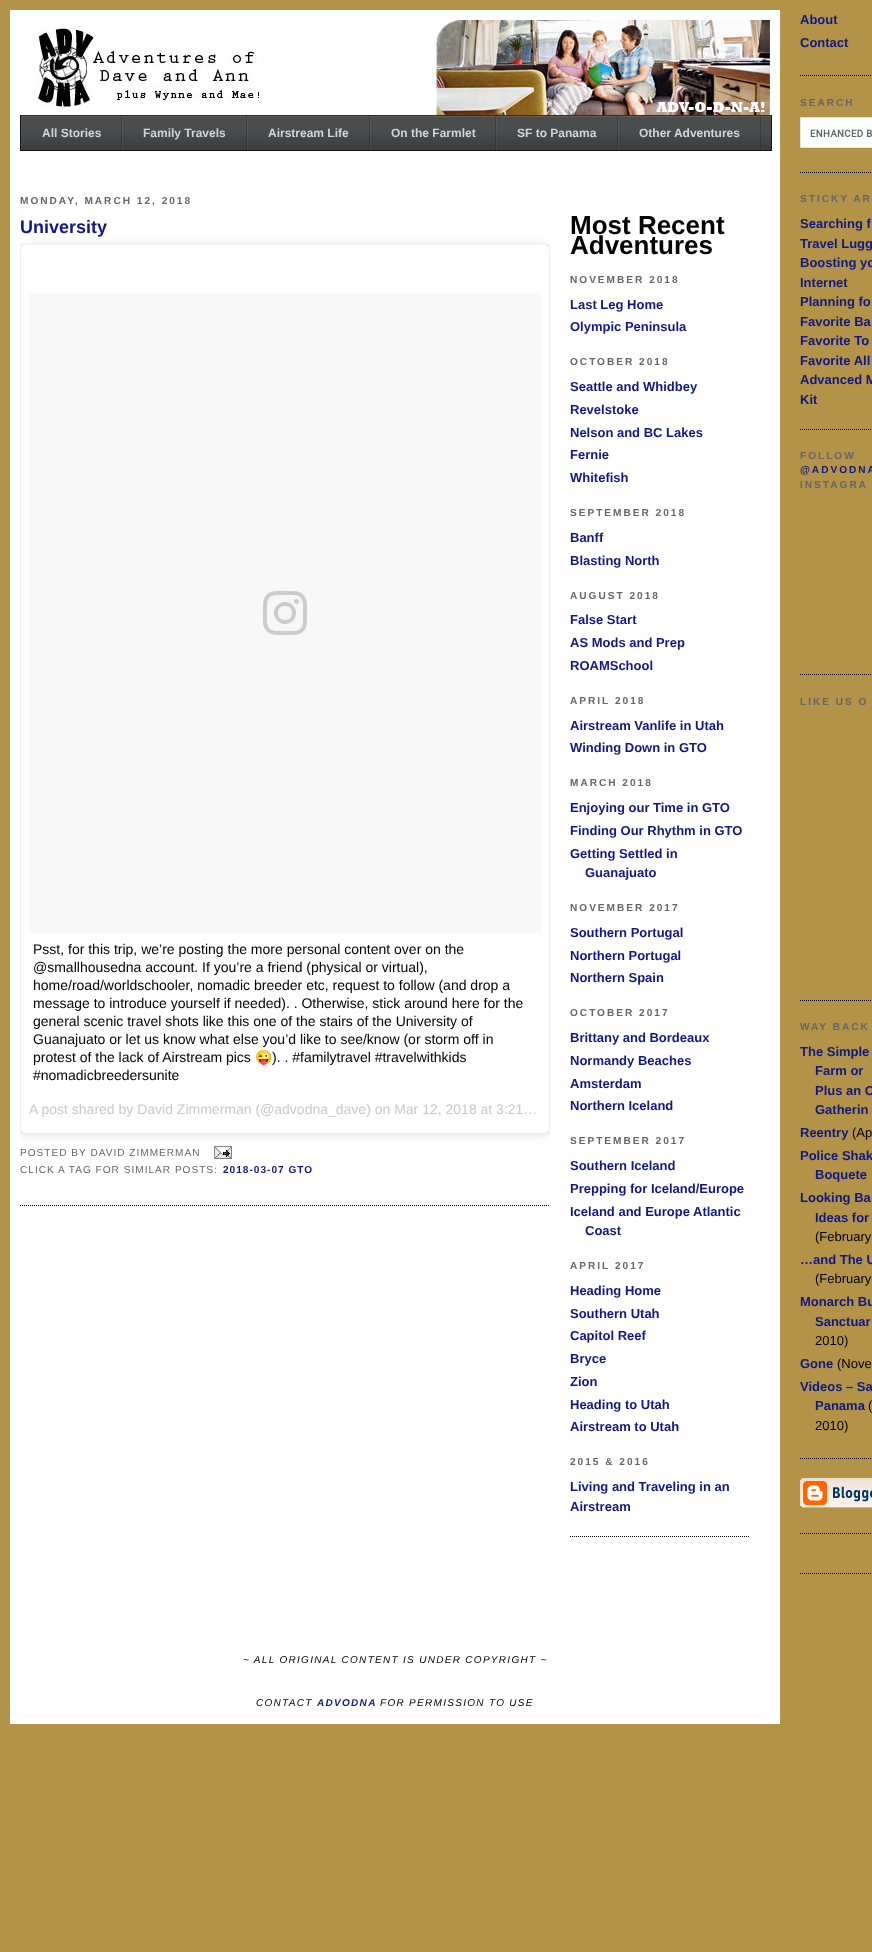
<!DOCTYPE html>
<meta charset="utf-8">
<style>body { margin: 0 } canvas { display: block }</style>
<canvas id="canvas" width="872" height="1952"></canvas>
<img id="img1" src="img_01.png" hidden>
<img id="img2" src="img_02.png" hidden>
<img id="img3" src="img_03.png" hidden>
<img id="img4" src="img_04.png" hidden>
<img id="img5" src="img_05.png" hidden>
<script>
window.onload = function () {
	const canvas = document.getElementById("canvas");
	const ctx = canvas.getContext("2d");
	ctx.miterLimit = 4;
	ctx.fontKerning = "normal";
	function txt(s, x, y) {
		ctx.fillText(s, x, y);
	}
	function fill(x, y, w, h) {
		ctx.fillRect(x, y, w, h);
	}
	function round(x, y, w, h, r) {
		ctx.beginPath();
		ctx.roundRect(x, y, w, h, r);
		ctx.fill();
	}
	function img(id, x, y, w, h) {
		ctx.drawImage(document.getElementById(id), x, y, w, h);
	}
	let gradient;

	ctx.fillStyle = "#B29348";
	fill(0, 0, 872, 1952);
	ctx.fillStyle = "#FFFFFF";
	fill(10, 10, 770, 1714);
	img("img1", 36, 20, 734, 95);
	gradient = ctx.createLinearGradient(21, 150, 21, 116);
	gradient.addColorStop(0.09, "#3B3F41");
	gradient.addColorStop(0.55, "#484C4D");
	gradient.addColorStop(0.78, "#4B4D4D");
	ctx.fillStyle = gradient;
	fill(761, 117, 10, 33);
	ctx.fillStyle = "#5D5F5F";
	fill(761, 116, 10, 1);
	ctx.fillStyle = "#2B2E30";
	fill(20, 115, 752, 1);
	ctx.fillStyle = "#121314";
	fill(771, 115, 1, 36);
	fill(20, 150, 752, 1);
	fill(20, 115, 1, 36);
	gradient = ctx.createLinearGradient(22, 150, 22, 116);
	gradient.addColorStop(0.09, "#3B3F41");
	gradient.addColorStop(0.55, "#484C4D");
	gradient.addColorStop(0.78, "#4B4D4D");
	ctx.fillStyle = gradient;
	fill(22, 117, 99, 33);
	gradient = ctx.createLinearGradient(22, 150, 22, 116);
	gradient.addColorStop(0.09, "#45494B");
	gradient.addColorStop(0.55, "#515556");
	gradient.addColorStop(0.78, "#545656");
	ctx.fillStyle = gradient;
	fill(21, 116, 1, 34);
	gradient = ctx.createLinearGradient(22, 150, 22, 116);
	gradient.addColorStop(0.09, "#2F3234");
	gradient.addColorStop(0.55, "#3A3D3E");
	gradient.addColorStop(0.78, "#3C3E3E");
	ctx.fillStyle = gradient;
	fill(121, 116, 1, 34);
	ctx.fillStyle = "#5D5F5F";
	fill(22, 116, 99, 1);
	gradient = ctx.createLinearGradient(123, 150, 123, 116);
	gradient.addColorStop(0.09, "#3B3F41");
	gradient.addColorStop(0.55, "#484C4D");
	gradient.addColorStop(0.78, "#4B4D4D");
	ctx.fillStyle = gradient;
	fill(123, 117, 123, 33);
	gradient = ctx.createLinearGradient(123, 150, 123, 116);
	gradient.addColorStop(0.09, "#45494B");
	gradient.addColorStop(0.55, "#515556");
	gradient.addColorStop(0.78, "#545656");
	ctx.fillStyle = gradient;
	fill(122, 116, 1, 34);
	gradient = ctx.createLinearGradient(123, 150, 123, 116);
	gradient.addColorStop(0.09, "#2F3234");
	gradient.addColorStop(0.55, "#3A3D3E");
	gradient.addColorStop(0.78, "#3C3E3E");
	ctx.fillStyle = gradient;
	fill(246, 116, 1, 34);
	ctx.fillStyle = "#5D5F5F";
	fill(123, 116, 123, 1);
	gradient = ctx.createLinearGradient(248, 150, 248, 116);
	gradient.addColorStop(0.09, "#3B3F41");
	gradient.addColorStop(0.55, "#484C4D");
	gradient.addColorStop(0.78, "#4B4D4D");
	ctx.fillStyle = gradient;
	fill(248, 117, 121, 33);
	gradient = ctx.createLinearGradient(248, 150, 248, 116);
	gradient.addColorStop(0.09, "#45494B");
	gradient.addColorStop(0.55, "#515556");
	gradient.addColorStop(0.78, "#545656");
	ctx.fillStyle = gradient;
	fill(247, 116, 1, 34);
	gradient = ctx.createLinearGradient(248, 150, 248, 116);
	gradient.addColorStop(0.09, "#2F3234");
	gradient.addColorStop(0.55, "#3A3D3E");
	gradient.addColorStop(0.78, "#3C3E3E");
	ctx.fillStyle = gradient;
	fill(369, 116, 1, 34);
	ctx.fillStyle = "#5D5F5F";
	fill(248, 116, 121, 1);
	gradient = ctx.createLinearGradient(371, 150, 371, 116);
	gradient.addColorStop(0.09, "#3B3F41");
	gradient.addColorStop(0.55, "#484C4D");
	gradient.addColorStop(0.78, "#4B4D4D");
	ctx.fillStyle = gradient;
	fill(371, 117, 124, 33);
	gradient = ctx.createLinearGradient(371, 150, 371, 116);
	gradient.addColorStop(0.09, "#45494B");
	gradient.addColorStop(0.55, "#515556");
	gradient.addColorStop(0.78, "#545656");
	ctx.fillStyle = gradient;
	fill(370, 116, 1, 34);
	gradient = ctx.createLinearGradient(371, 150, 371, 116);
	gradient.addColorStop(0.09, "#2F3234");
	gradient.addColorStop(0.55, "#3A3D3E");
	gradient.addColorStop(0.78, "#3C3E3E");
	ctx.fillStyle = gradient;
	fill(495, 116, 1, 34);
	ctx.fillStyle = "#5D5F5F";
	fill(371, 116, 124, 1);
	gradient = ctx.createLinearGradient(497, 150, 497, 116);
	gradient.addColorStop(0.09, "#3B3F41");
	gradient.addColorStop(0.55, "#484C4D");
	gradient.addColorStop(0.78, "#4B4D4D");
	ctx.fillStyle = gradient;
	fill(497, 117, 120, 33);
	gradient = ctx.createLinearGradient(497, 150, 497, 116);
	gradient.addColorStop(0.09, "#45494B");
	gradient.addColorStop(0.55, "#515556");
	gradient.addColorStop(0.78, "#545656");
	ctx.fillStyle = gradient;
	fill(496, 116, 1, 34);
	gradient = ctx.createLinearGradient(497, 150, 497, 116);
	gradient.addColorStop(0.09, "#2F3234");
	gradient.addColorStop(0.55, "#3A3D3E");
	gradient.addColorStop(0.78, "#3C3E3E");
	ctx.fillStyle = gradient;
	fill(617, 116, 1, 34);
	ctx.fillStyle = "#5D5F5F";
	fill(497, 116, 120, 1);
	gradient = ctx.createLinearGradient(619, 150, 619, 116);
	gradient.addColorStop(0.09, "#3B3F41");
	gradient.addColorStop(0.55, "#484C4D");
	gradient.addColorStop(0.78, "#4B4D4D");
	ctx.fillStyle = gradient;
	fill(619, 117, 141, 33);
	gradient = ctx.createLinearGradient(619, 150, 619, 116);
	gradient.addColorStop(0.09, "#45494B");
	gradient.addColorStop(0.55, "#515556");
	gradient.addColorStop(0.78, "#545656");
	ctx.fillStyle = gradient;
	fill(618, 116, 1, 34);
	gradient = ctx.createLinearGradient(619, 150, 619, 116);
	gradient.addColorStop(0.09, "#2F3234");
	gradient.addColorStop(0.55, "#3A3D3E");
	gradient.addColorStop(0.78, "#3C3E3E");
	ctx.fillStyle = gradient;
	fill(760, 116, 1, 34);
	ctx.fillStyle = "#5D5F5F";
	fill(619, 116, 141, 1);
	ctx.beginPath();
	ctx.moveTo(20, 1205.5);
	ctx.lineTo(550, 1205.5);
	ctx.strokeStyle = "#000000";
	ctx.setLineDash([1, 1]);
	ctx.stroke();
	ctx.save();
	ctx.beginPath();
	ctx.rect(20, 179, 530, 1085);
	ctx.clip();
	ctx.fillStyle = "rgba(0, 0, 0, 0.15)";
	ctx.filter = "blur(5px)";
	ctx.beginPath();
	ctx.roundRect(21, 246, 528, 888, 3);
	ctx.fill();
	ctx.filter = "none";
	ctx.restore();
	ctx.fillStyle = "rgba(0, 0, 0, 0.5)";
	ctx.filter = "blur(0.5px)";
	ctx.beginPath();
	ctx.roundRect(21, 245, 528, 888, 3);
	ctx.fill();
	ctx.filter = "none";
	ctx.fillStyle = "#FFFFFF";
	round(21, 245, 528, 888, 3);
	ctx.fillStyle = "#F8F8F8";
	fill(29, 293, 512, 640);
	img("img2", 263, 591, 44, 44);
	img("img3", 214, 1146, 18, 13);
	ctx.beginPath();
	ctx.moveTo(570, 1536.5);
	ctx.lineTo(750, 1536.5);
	ctx.stroke();
	ctx.beginPath();
	ctx.moveTo(800, 75.5);
	ctx.lineTo(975, 75.5);
	ctx.stroke();
	ctx.beginPath();
	ctx.moveTo(800, 172.5);
	ctx.lineTo(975, 172.5);
	ctx.stroke();
	ctx.fillStyle = "#FFFFFF";
	ctx.beginPath();
	ctx.rect(800.5, 117.5, 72, 30);
	ctx.fill();
	ctx.strokeStyle = "#DFE1E5";
	ctx.setLineDash([]);
	ctx.stroke();
	img("img4", 810, 129, 62, 8);
	ctx.beginPath();
	ctx.moveTo(800, 429.5);
	ctx.lineTo(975, 429.5);
	ctx.strokeStyle = "#000000";
	ctx.setLineDash([1, 1]);
	ctx.stroke();
	ctx.beginPath();
	ctx.moveTo(800, 674.5);
	ctx.lineTo(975, 674.5);
	ctx.stroke();
	ctx.beginPath();
	ctx.moveTo(800, 1000.5);
	ctx.lineTo(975, 1000.5);
	ctx.stroke();
	ctx.beginPath();
	ctx.moveTo(800, 1458.5);
	ctx.lineTo(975, 1458.5);
	ctx.stroke();
	ctx.beginPath();
	ctx.moveTo(800, 1533.5);
	ctx.lineTo(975, 1533.5);
	ctx.stroke();
	img("img5", 800, 1478, 72, 30);
	ctx.beginPath();
	ctx.moveTo(800, 1573.5);
	ctx.lineTo(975, 1573.5);
	ctx.stroke();
	ctx.font = "bold 12px Liberation Sans";
	ctx.fillStyle = "#D4D4D4";
	txt("All Stories", 42, 137);
	txt("Family Travels", 143, 137);
	txt("Airstream Life", 268, 137);
	txt("On the Farmlet", 391, 137);
	txt("SF to Panama", 517, 137);
	txt("Other Adventures", 639, 137);
	ctx.letterSpacing = "2px";
	ctx.font = "bold 10.1px Liberation Sans";
	ctx.fillStyle = "#666666";
	txt("MONDAY, MARCH 12, 2018", 20, 204);
	ctx.letterSpacing = "0px";
	ctx.font = "bold 18px Liberation Sans";
	ctx.fillStyle = "#101983";
	txt("University", 20, 233);
	ctx.font = "14px Liberation Sans";
	ctx.fillStyle = "#000000";
	txt("Psst, for this trip, we’re posting the more personal content over on the", 33, 954);
	txt("@smallhousedna account. If you’re a friend (physical or virtual),", 33, 972);
	txt("home/road/worldschooler, nomadic breeder etc, request to follow (and drop a", 33, 990);
	txt("message to introduce yourself if needed). . Otherwise, stick around here for the", 33, 1008);
	txt("general scenic travel shots like this one of the stairs of the University of", 33, 1026);
	txt("Guanajuato or let us know what else you’d like to see/know (or storm off in", 33, 1044);
	txt("protest of the lack of Airstream pics", 33, 1062);
	ctx.font = "14px Noto Color Emoji";
	txt("😜", 255, 1062);
	ctx.font = "14px Liberation Sans";
	txt("). . #familytravel #travelwithkids", 272, 1062);
	txt("#nomadicbreedersunite", 33, 1080);
	ctx.fillStyle = "#C9C8CD";
	txt("A post shared by David Zimmerman (@advodna_dave) on Mar 12, 2018 at 3:21…", 29, 1114);
	ctx.letterSpacing = "1px";
	ctx.font = "10.1px Liberation Sans";
	ctx.fillStyle = "#666666";
	txt("POSTED BY DAVID ZIMMERMAN", 20, 1156);
	txt("CLICK A TAG FOR SIMILAR POSTS:", 20, 1173);
	ctx.font = "bold 10.1px Liberation Sans";
	ctx.fillStyle = "#101983";
	txt("2018-03-07 GTO", 223, 1173);
	ctx.letterSpacing = "0px";
	ctx.font = "bold 26px Liberation Sans";
	ctx.fillStyle = "#000000";
	txt("Most Recent", 570, 234);
	txt("Adventures", 570, 254);
	ctx.letterSpacing = "2px";
	ctx.font = "bold 10.1px Liberation Sans";
	ctx.fillStyle = "#666666";
	txt("NOVEMBER 2018", 570, 283);
	ctx.letterSpacing = "0px";
	ctx.font = "bold 13px Liberation Sans";
	ctx.fillStyle = "#101983";
	txt("Last Leg Home", 570, 309);
	txt("Olympic Peninsula", 570, 331);
	ctx.letterSpacing = "2px";
	ctx.font = "bold 10.1px Liberation Sans";
	ctx.fillStyle = "#666666";
	txt("OCTOBER 2018", 570, 365);
	ctx.letterSpacing = "0px";
	ctx.font = "bold 13px Liberation Sans";
	ctx.fillStyle = "#101983";
	txt("Seattle and Whidbey", 570, 391);
	txt("Revelstoke", 570, 414);
	txt("Nelson and BC Lakes", 570, 437);
	txt("Fernie", 570, 459);
	txt("Whitefish", 570, 482);
	ctx.letterSpacing = "2px";
	ctx.font = "bold 10.1px Liberation Sans";
	ctx.fillStyle = "#666666";
	txt("SEPTEMBER 2018", 570, 516);
	ctx.letterSpacing = "0px";
	ctx.font = "bold 13px Liberation Sans";
	ctx.fillStyle = "#101983";
	txt("Banff", 570, 542);
	txt("Blasting North", 570, 565);
	ctx.letterSpacing = "2px";
	ctx.font = "bold 10.1px Liberation Sans";
	ctx.fillStyle = "#666666";
	txt("AUGUST 2018", 570, 599);
	ctx.letterSpacing = "0px";
	ctx.font = "bold 13px Liberation Sans";
	ctx.fillStyle = "#101983";
	txt("False Start", 570, 624);
	txt("AS Mods and Prep", 570, 647);
	txt("ROAMSchool", 570, 670);
	ctx.letterSpacing = "2px";
	ctx.font = "bold 10.1px Liberation Sans";
	ctx.fillStyle = "#666666";
	txt("APRIL 2018", 570, 704);
	ctx.letterSpacing = "0px";
	ctx.font = "bold 13px Liberation Sans";
	ctx.fillStyle = "#101983";
	txt("Airstream Vanlife in Utah", 570, 730);
	txt("Winding Down in GTO", 570, 752);
	ctx.letterSpacing = "2px";
	ctx.font = "bold 10.1px Liberation Sans";
	ctx.fillStyle = "#666666";
	txt("MARCH 2018", 570, 786);
	ctx.letterSpacing = "0px";
	ctx.font = "bold 13px Liberation Sans";
	ctx.fillStyle = "#101983";
	txt("Enjoying our Time in GTO", 570, 812);
	txt("Finding Our Rhythm in GTO", 570, 835);
	txt("Getting Settled in", 570, 858);
	txt("Guanajuato", 585, 877);
	ctx.letterSpacing = "2px";
	ctx.font = "bold 10.1px Liberation Sans";
	ctx.fillStyle = "#666666";
	txt("NOVEMBER 2017", 570, 911);
	ctx.letterSpacing = "0px";
	ctx.font = "bold 13px Liberation Sans";
	ctx.fillStyle = "#101983";
	txt("Southern Portugal", 570, 937);
	txt("Northern Portugal", 570, 960);
	txt("Northern Spain", 570, 982);
	ctx.letterSpacing = "2px";
	ctx.font = "bold 10.1px Liberation Sans";
	ctx.fillStyle = "#666666";
	txt("OCTOBER 2017", 570, 1016);
	ctx.letterSpacing = "0px";
	ctx.font = "bold 13px Liberation Sans";
	ctx.fillStyle = "#101983";
	txt("Brittany and Bordeaux", 570, 1042);
	txt("Normandy Beaches", 570, 1065);
	txt("Amsterdam", 570, 1088);
	txt("Northern Iceland", 570, 1110);
	ctx.letterSpacing = "2px";
	ctx.font = "bold 10.1px Liberation Sans";
	ctx.fillStyle = "#666666";
	txt("SEPTEMBER 2017", 570, 1144);
	ctx.letterSpacing = "0px";
	ctx.font = "bold 13px Liberation Sans";
	ctx.fillStyle = "#101983";
	txt("Southern Iceland", 570, 1170);
	txt("Prepping for Iceland/Europe", 570, 1193);
	txt("Iceland and Europe Atlantic", 570, 1216);
	txt("Coast", 585, 1235);
	ctx.letterSpacing = "2px";
	ctx.font = "bold 10.1px Liberation Sans";
	ctx.fillStyle = "#666666";
	txt("APRIL 2017", 570, 1269);
	ctx.letterSpacing = "0px";
	ctx.font = "bold 13px Liberation Sans";
	ctx.fillStyle = "#101983";
	txt("Heading Home", 570, 1295);
	txt("Southern Utah", 570, 1318);
	txt("Capitol Reef", 570, 1340);
	txt("Bryce", 570, 1363);
	txt("Zion", 570, 1386);
	txt("Heading to Utah", 570, 1409);
	txt("Airstream to Utah", 570, 1431);
	ctx.letterSpacing = "2px";
	ctx.font = "bold 10.1px Liberation Sans";
	ctx.fillStyle = "#666666";
	txt("2015 & 2016", 570, 1465);
	ctx.letterSpacing = "0px";
	ctx.font = "bold 13px Liberation Sans";
	ctx.fillStyle = "#101983";
	txt("Living and Traveling in an", 570, 1491);
	txt("Airstream", 570, 1511);
	ctx.letterSpacing = "1.3px";
	ctx.font = "italic 10px Liberation Sans";
	ctx.fillStyle = "#000000";
	txt("~ ALL ORIGINAL CONTENT IS UNDER COPYRIGHT ~", 243, 1663);
	txt("CONTACT", 256, 1706);
	ctx.font = "italic bold 10px Liberation Sans";
	ctx.fillStyle = "#101983";
	txt("ADVODNA", 317, 1706);
	ctx.font = "italic 10px Liberation Sans";
	ctx.fillStyle = "#000000";
	txt("FOR PERMISSION TO USE", 380, 1706);
	ctx.letterSpacing = "0px";
	ctx.font = "bold 13px Liberation Sans";
	ctx.fillStyle = "#101983";
	txt("About", 800, 24);
	txt("Contact", 800, 47);
	ctx.letterSpacing = "2px";
	ctx.font = "bold 10.1px Liberation Sans";
	ctx.fillStyle = "#666666";
	txt("SEARCH", 800, 106);
	txt("STICKY AR", 800, 202);
	ctx.letterSpacing = "0px";
	ctx.font = "bold 13px Liberation Sans";
	ctx.fillStyle = "#101983";
	txt("Searching f", 800, 228);
	txt("Travel Lugg", 800, 248);
	txt("Boosting yo", 800, 267);
	txt("Internet", 800, 287);
	txt("Planning fo", 800, 306);
	txt("Favorite Ba", 800, 326);
	txt("Favorite To", 800, 345);
	txt("Favorite All", 800, 365);
	txt("Advanced M", 800, 384);
	txt("Kit", 800, 404);
	ctx.letterSpacing = "2px";
	ctx.font = "bold 10.1px Liberation Sans";
	ctx.fillStyle = "#666666";
	txt("FOLLOW", 800, 459);
	ctx.fillStyle = "#101983";
	txt("@ADVODNA", 800, 473);
	ctx.fillStyle = "#666666";
	txt("INSTAGRA", 800, 488);
	txt("LIKE US O", 800, 705);
	txt("WAY BACK", 800, 1030);
	ctx.letterSpacing = "0px";
	ctx.font = "bold 13px Liberation Sans";
	ctx.fillStyle = "#101983";
	txt("The Simple", 800, 1056);
	txt("Farm or", 815, 1075);
	txt("Plus an O", 815, 1095);
	txt("Gatherin", 815, 1114);
	txt("Reentry", 800, 1137);
	ctx.font = "13px Liberation Sans";
	ctx.fillStyle = "#000000";
	txt("(Ap", 852, 1137);
	ctx.font = "bold 13px Liberation Sans";
	ctx.fillStyle = "#101983";
	txt("Police Shak", 800, 1160);
	txt("Boquete", 815, 1179);
	txt("Looking Ba", 800, 1202);
	txt("Ideas for", 815, 1222);
	ctx.font = "13px Liberation Sans";
	ctx.fillStyle = "#000000";
	txt("(February", 815, 1241);
	ctx.font = "bold 13px Liberation Sans";
	ctx.fillStyle = "#101983";
	txt("…and The U", 800, 1264);
	ctx.font = "13px Liberation Sans";
	ctx.fillStyle = "#000000";
	txt("(February", 815, 1283);
	ctx.font = "bold 13px Liberation Sans";
	ctx.fillStyle = "#101983";
	txt("Monarch Bu", 800, 1306);
	txt("Sanctuar", 815, 1326);
	ctx.font = "13px Liberation Sans";
	ctx.fillStyle = "#000000";
	txt("2010)", 815, 1345);
	ctx.font = "bold 13px Liberation Sans";
	ctx.fillStyle = "#101983";
	txt("Gone", 800, 1368);
	ctx.font = "13px Liberation Sans";
	ctx.fillStyle = "#000000";
	txt("(Nove", 837, 1368);
	ctx.font = "bold 13px Liberation Sans";
	ctx.fillStyle = "#101983";
	txt("Videos – Sa", 800, 1391);
	txt("Panama", 815, 1410);
	ctx.font = "13px Liberation Sans";
	ctx.fillStyle = "#000000";
	txt("(", 868, 1410);
	txt("2010)", 815, 1430);
};
</script>
